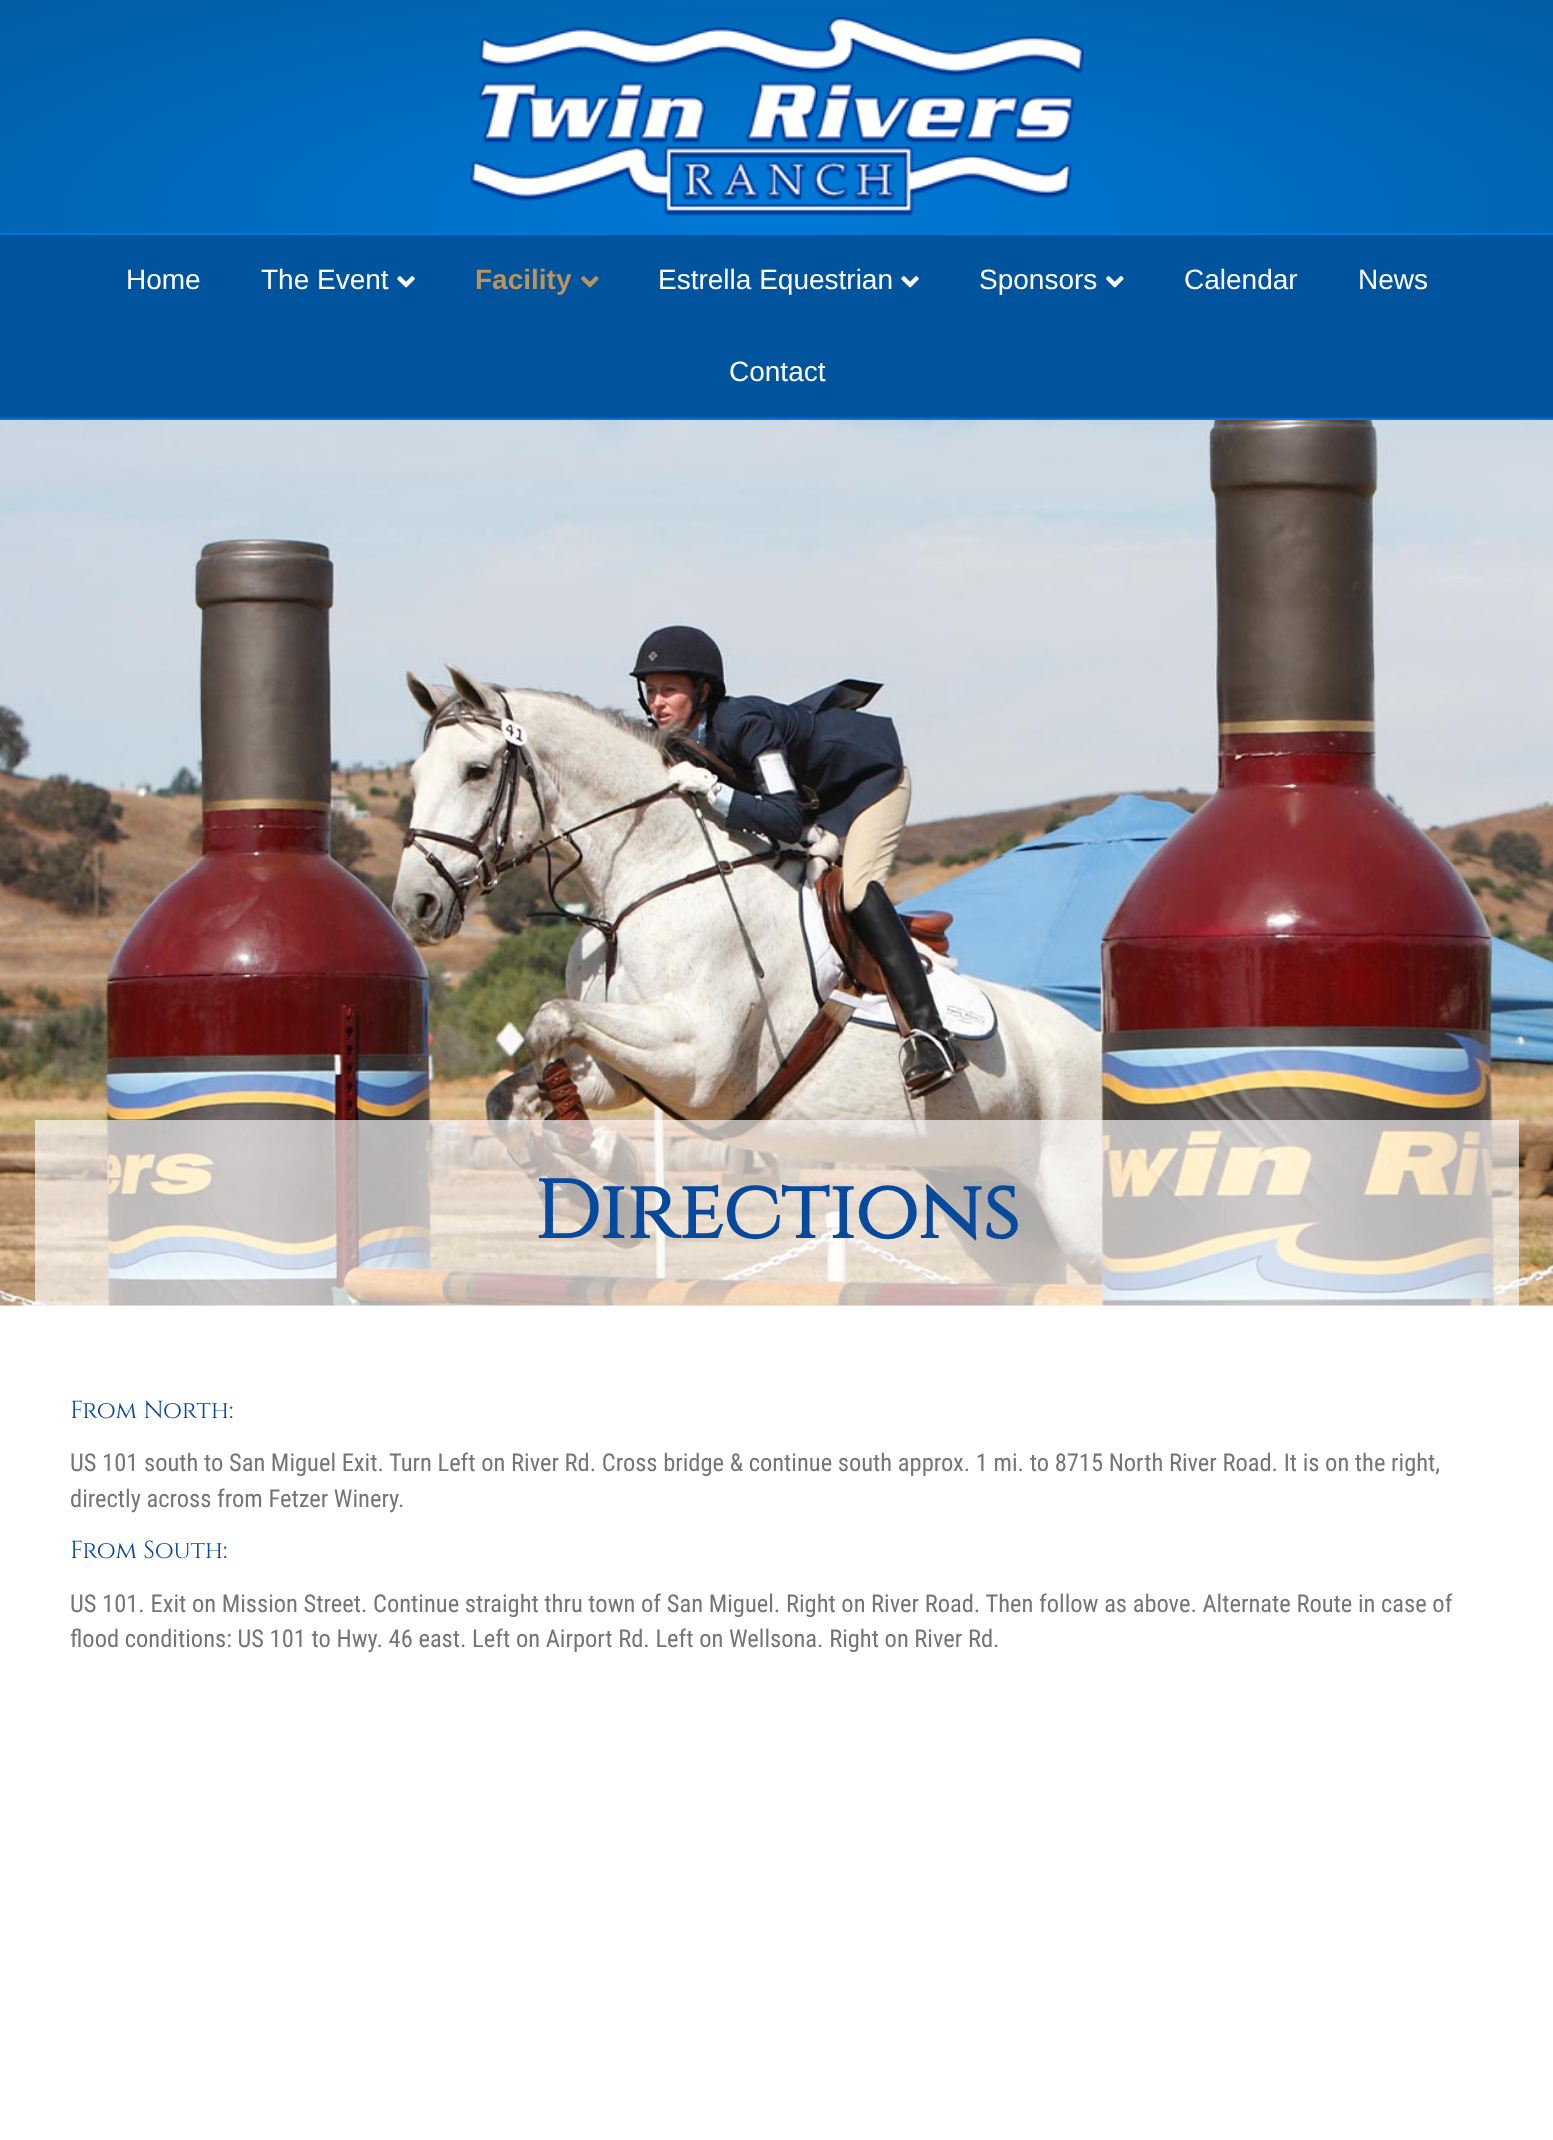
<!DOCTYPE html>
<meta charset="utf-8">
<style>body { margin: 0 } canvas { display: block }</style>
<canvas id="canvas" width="1553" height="2140"></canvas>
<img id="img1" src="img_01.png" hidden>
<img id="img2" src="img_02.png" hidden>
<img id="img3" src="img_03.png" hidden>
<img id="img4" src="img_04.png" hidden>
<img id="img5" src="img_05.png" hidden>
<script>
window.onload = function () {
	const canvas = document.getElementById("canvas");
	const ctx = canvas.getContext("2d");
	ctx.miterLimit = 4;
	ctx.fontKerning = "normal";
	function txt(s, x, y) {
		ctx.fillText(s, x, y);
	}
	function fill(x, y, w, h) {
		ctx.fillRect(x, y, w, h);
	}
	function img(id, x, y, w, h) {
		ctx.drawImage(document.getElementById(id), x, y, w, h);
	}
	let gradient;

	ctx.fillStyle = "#F2F2F2";
	fill(0, 0, 1553, 2140);
	gradient = ctx.createRadialGradient(777, 777.07, 0, 777, 777.07, 1099);
	gradient.addColorStop(0, "#007AD8");
	gradient.addColorStop(1, "#005DA5");
	ctx.fillStyle = gradient;
	ctx.beginPath();
	ctx.rect(0, 0, 1553, 233);
	ctx.save();
	ctx.clip();
	ctx.scale(1, 297 / 1099);
	ctx.fillRect(0, 0, 1553, 7919);
	ctx.restore();
	img("img1", 470, 17, 614, 199);
	ctx.fillStyle = "#00549E";
	fill(0, 235, 1553, 183);
	ctx.fillStyle = "#0077E0";
	fill(0, 233, 1553, 2);
	fill(0, 418, 1553, 2);
	img("img2", 397, 276, 18, 12);
	img("img3", 581, 276, 18, 12);
	img("img2", 901, 276, 18, 12);
	img("img4", 1106, 276, 18, 12);
	img("img5", 0, 420, 1553, 886);
	ctx.fillStyle = "rgba(255, 255, 255, 0.65)";
	fill(35, 1120, 1484, 186);
	ctx.fillStyle = "#FFFFFF";
	fill(0, 1306, 1553, 834);
	ctx.font = "28px Liberation Sans";
	txt("Home", 126, 289);
	txt("The Event", 261, 289);
	ctx.font = "bold 28px Liberation Sans";
	ctx.fillStyle = "#BA945E";
	txt("Facility", 475, 289);
	ctx.font = "28px Liberation Sans";
	ctx.fillStyle = "#FFFFFF";
	txt("Estrella Equestrian", 658, 289);
	txt("Sponsors", 979, 289);
	txt("Calendar", 1184, 289);
	txt("News", 1358, 289);
	txt("Contact", 729, 381);
	ctx.font = "bold 82.25px Cinzel";
	ctx.fillStyle = "#07499D";
	txt("Directions", 534, 1238);
	ctx.font = "24.5px Cinzel";
	txt("From North:", 70, 1418);
	ctx.font = "24.5px Roboto Condensed";
	ctx.fillStyle = "#757575";
	txt("US 101 south to San Miguel Exit. Turn Left on River Rd. Cross bridge & continue south approx. 1 mi. to 8715 North River Road. It is on the right,", 70, 1471);
	txt("directly across from Fetzer Winery.", 70, 1507);
	ctx.font = "24.5px Cinzel";
	ctx.fillStyle = "#07499D";
	txt("From South:", 70, 1558);
	ctx.font = "24.5px Roboto Condensed";
	ctx.fillStyle = "#757575";
	txt("US 101. Exit on Mission Street. Continue straight thru town of San Miguel. Right on River Road. Then follow as above. Alternate Route in case of", 70, 1612);
	txt("flood conditions: US 101 to Hwy. 46 east. Left on Airport Rd. Left on Wellsona. Right on River Rd.", 70, 1647);
};
</script>
